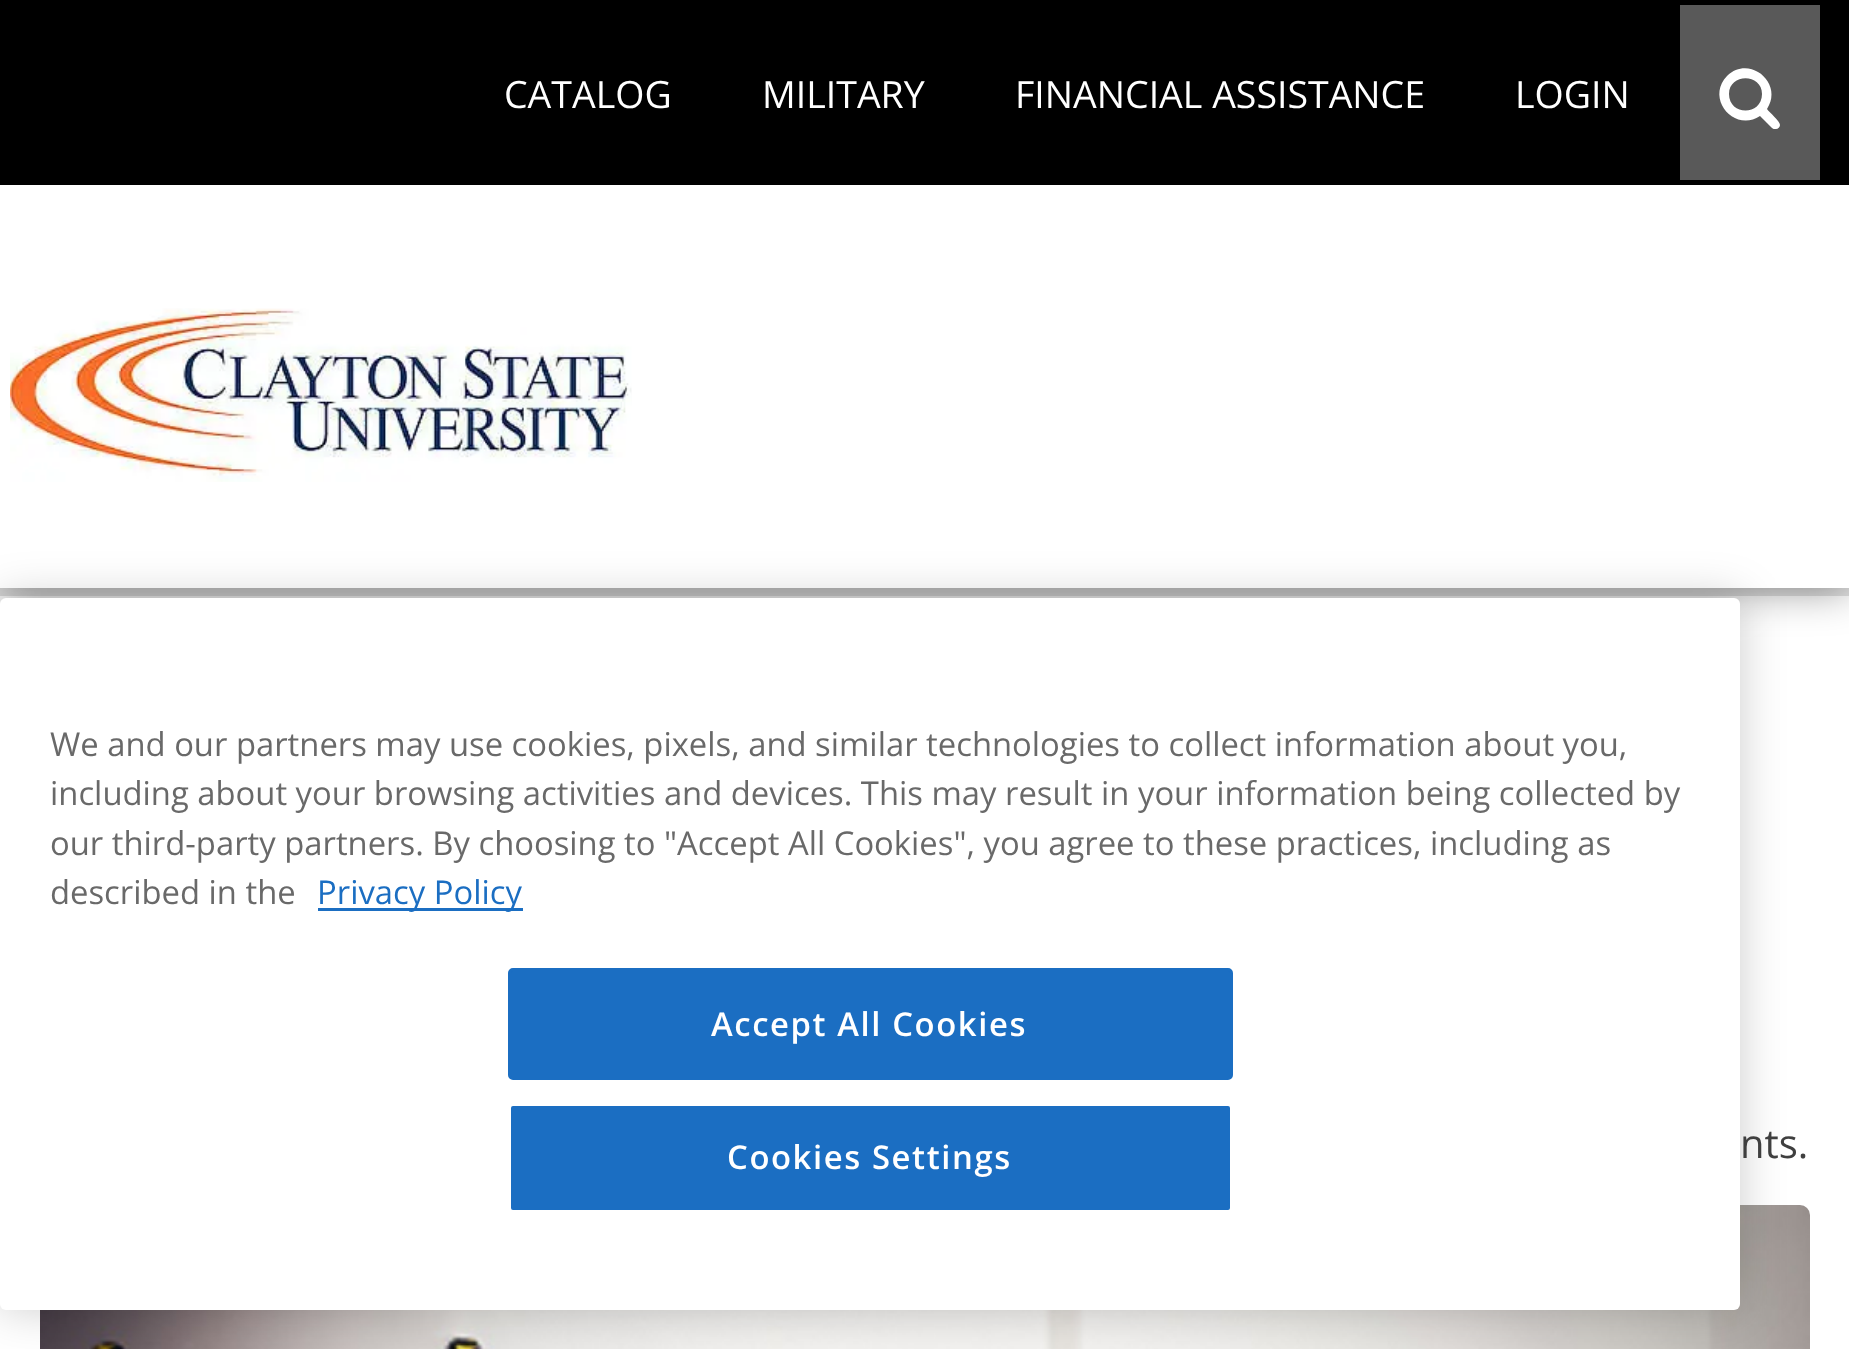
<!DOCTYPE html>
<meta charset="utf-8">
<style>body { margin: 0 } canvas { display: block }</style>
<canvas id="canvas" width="1849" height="1349"></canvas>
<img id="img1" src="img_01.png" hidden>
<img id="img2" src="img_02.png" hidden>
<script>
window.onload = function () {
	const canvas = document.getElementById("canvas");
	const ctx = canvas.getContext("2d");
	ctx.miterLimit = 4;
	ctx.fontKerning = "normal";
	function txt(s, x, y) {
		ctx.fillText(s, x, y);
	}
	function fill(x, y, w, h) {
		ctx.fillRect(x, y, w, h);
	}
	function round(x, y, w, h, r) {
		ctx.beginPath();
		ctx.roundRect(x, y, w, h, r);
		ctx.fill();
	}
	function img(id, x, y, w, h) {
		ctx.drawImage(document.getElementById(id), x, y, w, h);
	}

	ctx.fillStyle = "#FFFFFF";
	fill(0, 0, 1849, 1349);
	ctx.fillStyle = "#000000";
	fill(0, 0, 1849, 185);
	ctx.fillStyle = "#E2E2E2";
	fill(0, 588, 1849, 8);
	ctx.fillStyle = "rgba(0, 0, 0, 0.42)";
	ctx.filter = "blur(21px)";
	ctx.beginPath();
	ctx.rect(0, 188, 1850, 402);
	ctx.fill();
	ctx.filter = "none";
	ctx.fillStyle = "#595959";
	fill(1680, 5, 140, 175);
	ctx.fillStyle = "#FFFFFF";
	ctx.beginPath();
	ctx.moveTo(1762, 94);
	ctx.bezierCurveTo(1762, 116, 1729, 116, 1729, 94);
	ctx.bezierCurveTo(1729, 73, 1762, 73, 1762, 94);
	ctx.closePath();
	ctx.moveTo(1780, 125);
	ctx.bezierCurveTo(1780, 121, 1769, 112, 1767, 109);
	ctx.bezierCurveTo(1784, 84, 1750, 54, 1727, 76);
	ctx.bezierCurveTo(1705, 99, 1735, 133, 1760, 116);
	ctx.lineTo(1772, 128);
	ctx.bezierCurveTo(1773, 129, 1774, 129, 1776, 129);
	ctx.bezierCurveTo(1778, 129, 1780, 127, 1780, 125);
	ctx.closePath();
	ctx.fill();
	fill(0, 185, 1849, 403);
	img("img1", 10, 308, 622, 174);
	img("img2", 40, 1205, 1770, 144);
	ctx.fillStyle = "rgba(0, 0, 0, 0.2)";
	ctx.filter = "blur(22.5px)";
	ctx.beginPath();
	ctx.roundRect(0, 598, 1740, 712, 6);
	ctx.fill();
	ctx.filter = "none";
	ctx.fillStyle = "#FFFFFF";
	round(0, 598, 1740, 712, 6);
	ctx.fillStyle = "#1B6EC2";
	fill(318, 908, 205, 3);
	ctx.beginPath();
	ctx.roundRect(509.5, 969.5, 722, 109, 3.5);
	ctx.fill();
	ctx.strokeStyle = "#1B6EC2";
	ctx.lineWidth = 3;
	ctx.stroke();
	ctx.beginPath();
	ctx.roundRect(509.5, 1104.5, 722, 107, 3.5);
	ctx.fill();
	ctx.strokeStyle = "#FFFFFF";
	ctx.stroke();
	ctx.font = "37.5px Open Sans";
	ctx.fillStyle = "#FFFFFF";
	txt("CATALOG", 504, 108);
	txt("MILITARY", 762, 108);
	txt("FINANCIAL ASSISTANCE", 1015, 108);
	txt("LOGIN", 1515, 108);
	ctx.font = "40px Open Sans";
	ctx.fillStyle = "#3F3F3F";
	txt("nts.", 1740, 1158);
	ctx.font = "32.8px Open Sans";
	ctx.fillStyle = "#696969";
	txt("We and our partners may use cookies, pixels, and similar technologies to collect information about you,", 50, 756);
	txt("including about your browsing activities and devices. This may result in your information being collected by", 50, 805);
	txt("our third-party partners. By choosing to \"Accept All Cookies\", you agree to these practices, including as", 50, 855);
	txt("described in the", 50, 904);
	ctx.fillStyle = "#1B6EC2";
	txt("Privacy Policy", 317, 904);
	ctx.letterSpacing = "1.6px";
	ctx.font = "600 32.8px Open Sans";
	ctx.fillStyle = "#FFFFFF";
	txt("Accept All Cookies", 711, 1036);
	txt("Cookies Settings", 727, 1169);
};
</script>
